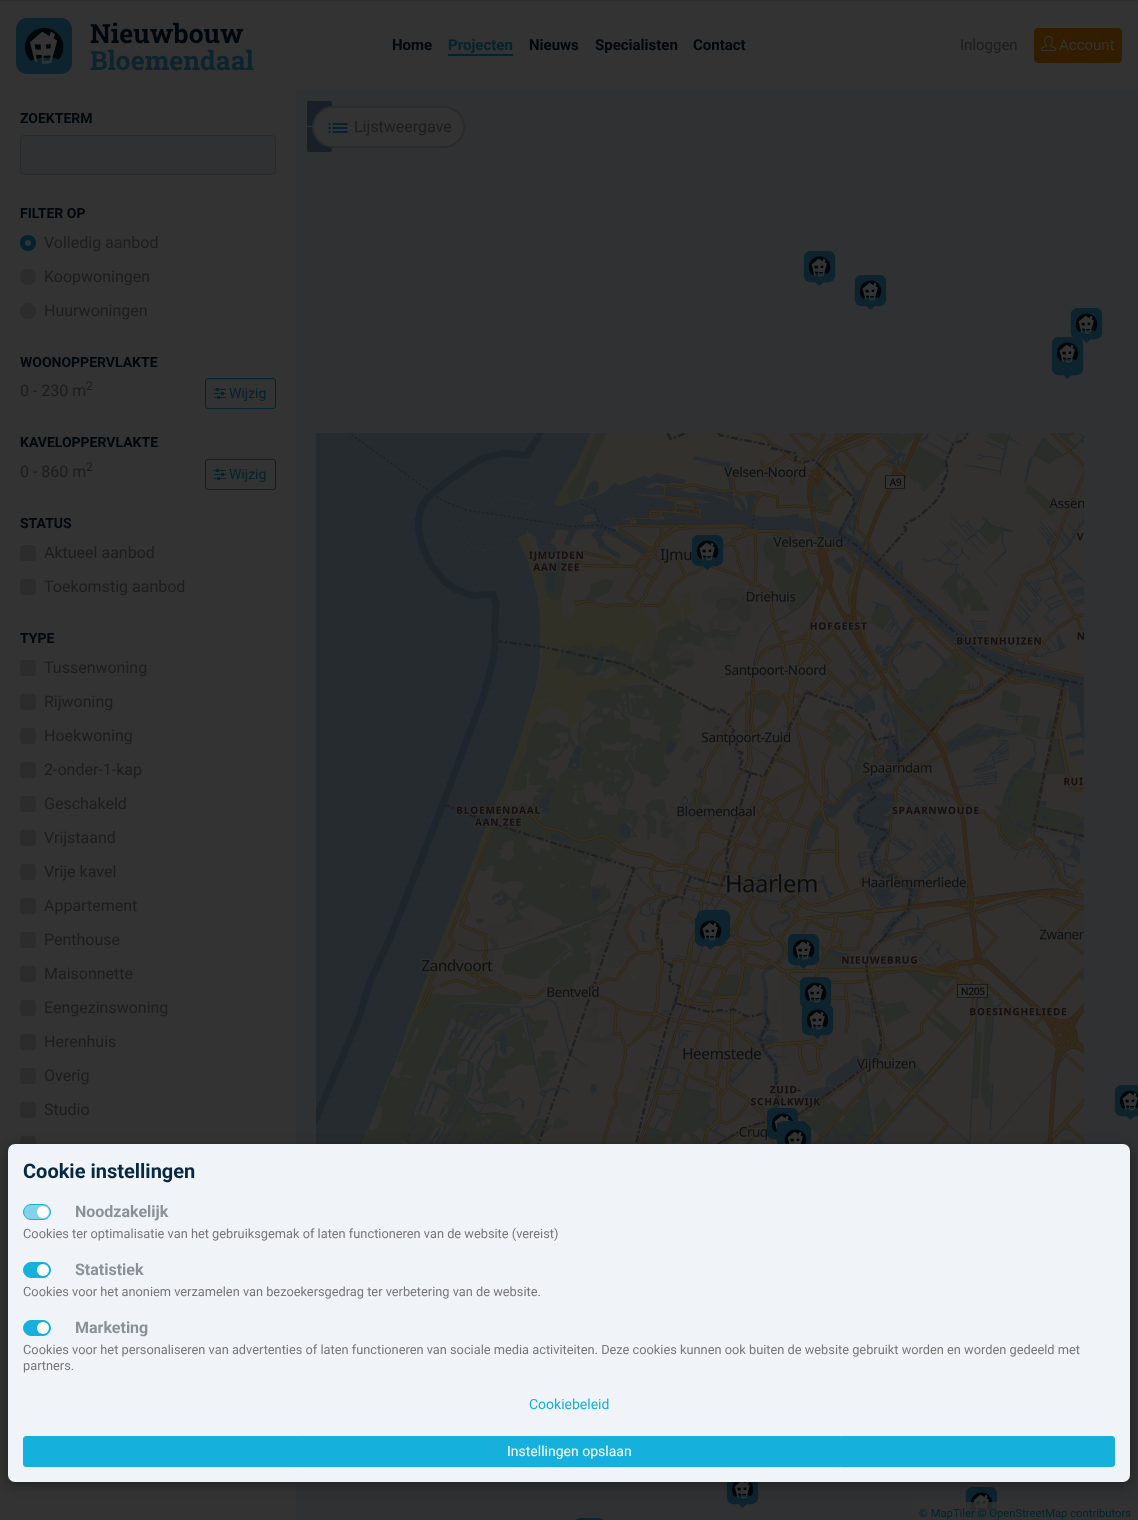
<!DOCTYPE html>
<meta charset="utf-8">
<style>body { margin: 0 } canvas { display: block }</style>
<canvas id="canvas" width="1138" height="1520"></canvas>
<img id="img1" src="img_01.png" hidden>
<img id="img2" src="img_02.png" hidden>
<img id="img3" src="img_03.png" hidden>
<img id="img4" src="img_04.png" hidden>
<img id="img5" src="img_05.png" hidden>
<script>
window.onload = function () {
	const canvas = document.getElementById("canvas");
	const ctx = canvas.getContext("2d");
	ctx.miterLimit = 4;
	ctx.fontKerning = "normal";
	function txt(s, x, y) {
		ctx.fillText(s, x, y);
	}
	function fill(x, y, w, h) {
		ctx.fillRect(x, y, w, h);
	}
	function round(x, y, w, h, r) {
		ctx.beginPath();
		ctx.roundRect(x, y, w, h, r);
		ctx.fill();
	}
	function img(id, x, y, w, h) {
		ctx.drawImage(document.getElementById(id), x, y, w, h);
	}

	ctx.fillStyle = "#303132";
	fill(0, 0, 1138, 1520);
	ctx.fillStyle = "#333333";
	fill(0, 1, 1138, 89);
	ctx.fillStyle = "#2C2E2F";
	fill(0, 0, 1138, 1);
	img("img1", 16, 18, 56, 56);
	ctx.fillStyle = "#04232C";
	fill(448, 54, 65, 2);
	ctx.fillStyle = "#331D00";
	ctx.beginPath();
	ctx.roundRect(1034.5, 28.5, 87, 34, 3.5);
	ctx.fill();
	ctx.strokeStyle = "#331D00";
	ctx.stroke();
	img("img2", 1041, 35, 15, 16);
	ctx.fillStyle = "#333333";
	fill(0, 90, 296, 1430);
	ctx.fillStyle = "#303132";
	ctx.beginPath();
	ctx.roundRect(20.5, 135.5, 255, 39, 3.5);
	ctx.fill();
	ctx.strokeStyle = "#292A2C";
	ctx.stroke();
	ctx.fillStyle = "#04232C";
	ctx.beginPath();
	ctx.arc(28, 243, 8, 0, Math.PI * 2);
	ctx.fill();
	ctx.fillStyle = "#333333";
	ctx.beginPath();
	ctx.arc(28, 243, 3, 0, Math.PI * 2);
	ctx.fill();
	ctx.fillStyle = "#2C2C2C";
	ctx.beginPath();
	ctx.arc(28, 277, 8, 0, Math.PI * 2);
	ctx.fill();
	ctx.beginPath();
	ctx.arc(28, 311, 8, 0, Math.PI * 2);
	ctx.fill();
	ctx.beginPath();
	ctx.roundRect(205.5, 378.5, 70, 30, 2.5);
	ctx.strokeStyle = "#04232C";
	ctx.stroke();
	img("img3", 214, 388, 12, 11);
	ctx.beginPath();
	ctx.roundRect(205.5, 459.5, 70, 30, 2.5);
	ctx.stroke();
	img("img3", 214, 469, 12, 11);
	round(20, 545, 16, 16, 4);
	round(20, 579, 16, 16, 4);
	round(20, 660, 16, 16, 4);
	round(20, 694, 16, 16, 4);
	round(20, 728, 16, 16, 4);
	round(20, 762, 16, 16, 4);
	round(20, 796, 16, 16, 4);
	round(20, 830, 16, 16, 4);
	round(20, 864, 16, 16, 4);
	round(20, 898, 16, 16, 4);
	round(20, 932, 16, 16, 4);
	round(20, 966, 16, 16, 4);
	round(20, 1000, 16, 16, 4);
	round(20, 1034, 16, 16, 4);
	round(20, 1068, 16, 16, 4);
	round(20, 1102, 16, 16, 4);
	round(20, 1136, 16, 16, 4);
	ctx.fillStyle = "#191F27";
	ctx.beginPath();
	ctx.roundRect(307, 101, 25, 25, [2, 2, 0, 0]);
	ctx.fill();
	ctx.beginPath();
	ctx.roundRect(307, 127, 25, 25, [0, 0, 2, 2]);
	ctx.fill();
	ctx.fillStyle = "#333333";
	ctx.beginPath();
	ctx.roundRect(313, 107, 151, 40, 20);
	ctx.fill();
	ctx.strokeStyle = "#2A2B2C";
	ctx.lineWidth = 2;
	ctx.stroke();
	img("img4", 328, 123, 20, 10);
	img("img5", 316, 251, 822, 1269);
	ctx.fillStyle = "rgba(51, 51, 51, 0.8)";
	ctx.beginPath();
	ctx.roundRect(912, 1502, 226, 18, [4, 0, 0, 0]);
	ctx.fill();
	ctx.fillStyle = "rgba(0, 0, 0, 0.33)";
	ctx.filter = "blur(6px)";
	ctx.beginPath();
	ctx.roundRect(8, 1147, 1122, 338, 7);
	ctx.fill();
	ctx.filter = "none";
	ctx.fillStyle = "#F0F4F8";
	round(8, 1144, 1122, 338, 7);
	ctx.fillStyle = "#83D2EA";
	ctx.beginPath();
	ctx.roundRect(23.5, 1204.5, 27, 15, 7.5);
	ctx.fill();
	ctx.strokeStyle = "#15B0DB";
	ctx.lineWidth = 1;
	ctx.stroke();
	ctx.fillStyle = "#FFFFFF";
	ctx.beginPath();
	ctx.arc(43, 1212, 6, 0, Math.PI * 2);
	ctx.fill();
	ctx.fillStyle = "#15B0DB";
	ctx.beginPath();
	ctx.roundRect(23.5, 1262.5, 27, 15, 7.5);
	ctx.fill();
	ctx.stroke();
	ctx.fillStyle = "#FFFFFF";
	ctx.beginPath();
	ctx.arc(43, 1270, 6, 0, Math.PI * 2);
	ctx.fill();
	ctx.fillStyle = "#15B0DB";
	ctx.beginPath();
	ctx.roundRect(23.5, 1320.5, 27, 15, 7.5);
	ctx.fill();
	ctx.stroke();
	ctx.fillStyle = "#FFFFFF";
	ctx.beginPath();
	ctx.arc(43, 1328, 6, 0, Math.PI * 2);
	ctx.fill();
	ctx.fillStyle = "#15B0DB";
	ctx.beginPath();
	ctx.roundRect(23.5, 1436.5, 1091, 30, 2.5);
	ctx.fill();
	ctx.stroke();
	ctx.font = "bold 26.5px Roboto Slab";
	ctx.fillStyle = "#01080D";
	txt("Nieuwbouw", 90, 43);
	ctx.fillStyle = "#0D242E";
	txt("Bloemendaal", 90, 70);
	ctx.font = "bold 15px Roboto";
	ctx.fillStyle = "#01080D";
	txt("Home", 392, 50);
	ctx.fillStyle = "#04232C";
	txt("Projecten", 448, 50);
	ctx.fillStyle = "#01080D";
	txt("Nieuws", 529, 50);
	txt("Specialisten", 595, 50);
	txt("Contact", 693, 50);
	ctx.font = "15px Roboto";
	ctx.fillStyle = "#1C1D1F";
	txt("Inloggen", 960, 50);
	ctx.fillStyle = "#333333";
	txt("Account", 1059, 50);
	ctx.font = "bold 14px Roboto";
	ctx.fillStyle = "#01080D";
	txt("ZOEKTERM", 20, 123);
	txt("FILTER OP", 20, 218);
	ctx.font = "16px Roboto";
	ctx.fillStyle = "#1C1D1F";
	txt("Volledig aanbod", 44, 248);
	txt("Koopwoningen", 44, 282);
	txt("Huurwoningen", 44, 316);
	ctx.font = "bold 14px Roboto";
	ctx.fillStyle = "#01080D";
	txt("WOONOPPERVLAKTE", 20, 367);
	ctx.font = "16px Roboto";
	ctx.fillStyle = "#1C1D1F";
	txt("0 - 230 m", 20, 396);
	ctx.font = "12px Roboto";
	txt("2", 86, 390);
	ctx.font = "14px Roboto";
	ctx.fillStyle = "#04232C";
	txt("Wijzig", 229, 398);
	ctx.font = "bold 14px Roboto";
	ctx.fillStyle = "#01080D";
	txt("KAVELOPPERVLAKTE", 20, 447);
	ctx.font = "16px Roboto";
	ctx.fillStyle = "#1C1D1F";
	txt("0 - 860 m", 20, 477);
	ctx.font = "12px Roboto";
	txt("2", 86, 471);
	ctx.font = "14px Roboto";
	ctx.fillStyle = "#04232C";
	txt("Wijzig", 229, 479);
	ctx.font = "bold 14px Roboto";
	ctx.fillStyle = "#01080D";
	txt("STATUS", 20, 528);
	ctx.font = "16px Roboto";
	ctx.fillStyle = "#1C1D1F";
	txt("Aktueel aanbod", 44, 558);
	txt("Toekomstig aanbod", 44, 592);
	ctx.font = "bold 14px Roboto";
	ctx.fillStyle = "#01080D";
	txt("TYPE", 20, 643);
	ctx.font = "16px Roboto";
	ctx.fillStyle = "#1C1D1F";
	txt("Tussenwoning", 44, 673);
	txt("Rijwoning", 44, 707);
	txt("Hoekwoning", 44, 741);
	txt("2-onder-1-kap", 44, 775);
	txt("Geschakeld", 44, 809);
	txt("Vrijstaand", 44, 843);
	txt("Vrije kavel", 44, 877);
	txt("Appartement", 44, 911);
	txt("Penthouse", 44, 945);
	txt("Maisonnette", 44, 979);
	txt("Eengezinswoning", 44, 1013);
	txt("Herenhuis", 44, 1047);
	txt("Overig", 44, 1081);
	txt("Studio", 44, 1115);
	txt("Lijstweergave", 354, 132);
	ctx.font = "11.25px Roboto";
	ctx.fillStyle = "#04232C";
	txt("© MapTiler © OpenStreetMap contributors", 919, 1517);
	ctx.font = "bold 20px Roboto";
	ctx.fillStyle = "#062843";
	txt("Cookie instellingen", 23, 1178);
	ctx.font = "bold 16px Roboto";
	ctx.fillStyle = "#8A9299";
	txt("Noodzakelijk", 75, 1217);
	ctx.font = "12.8px Roboto";
	ctx.fillStyle = "#777777";
	txt("Cookies ter optimalisatie van het gebruiksgemak of laten functioneren van de website (vereist)", 23, 1238);
	ctx.font = "bold 16px Roboto";
	ctx.fillStyle = "#8A9299";
	txt("Statistiek", 75, 1275);
	ctx.font = "12.8px Roboto";
	ctx.fillStyle = "#777777";
	txt("Cookies voor het anoniem verzamelen van bezoekersgedrag ter verbetering van de website.", 23, 1296);
	ctx.font = "bold 16px Roboto";
	ctx.fillStyle = "#8A9299";
	txt("Marketing", 75, 1333);
	ctx.font = "12.8px Roboto";
	ctx.fillStyle = "#777777";
	txt("Cookies voor het personaliseren van advertenties of laten functioneren van sociale media activiteiten. Deze cookies kunnen ook buiten de website gebruikt worden en worden gedeeld met", 23, 1354);
	txt("partners.", 23, 1370);
	ctx.font = "14px Roboto";
	ctx.fillStyle = "#15B0DB";
	txt("Cookiebeleid", 529, 1409);
	ctx.fillStyle = "#FFFFFF";
	txt("Instellingen opslaan", 507, 1456);
};
</script>
